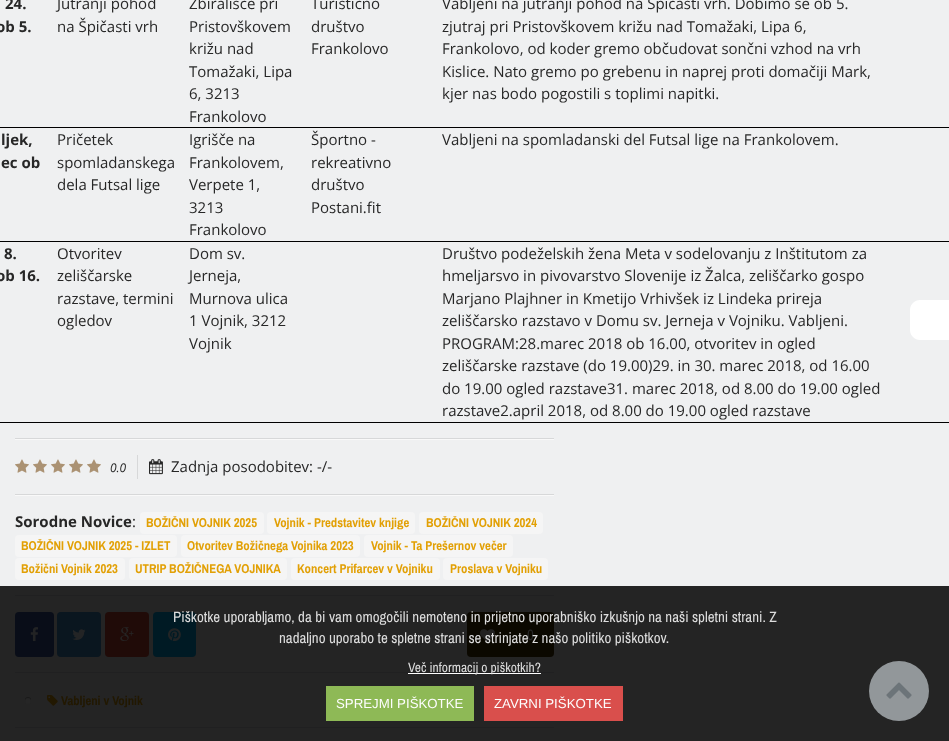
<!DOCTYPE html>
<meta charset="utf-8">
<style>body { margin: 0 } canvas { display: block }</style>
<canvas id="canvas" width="949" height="741"></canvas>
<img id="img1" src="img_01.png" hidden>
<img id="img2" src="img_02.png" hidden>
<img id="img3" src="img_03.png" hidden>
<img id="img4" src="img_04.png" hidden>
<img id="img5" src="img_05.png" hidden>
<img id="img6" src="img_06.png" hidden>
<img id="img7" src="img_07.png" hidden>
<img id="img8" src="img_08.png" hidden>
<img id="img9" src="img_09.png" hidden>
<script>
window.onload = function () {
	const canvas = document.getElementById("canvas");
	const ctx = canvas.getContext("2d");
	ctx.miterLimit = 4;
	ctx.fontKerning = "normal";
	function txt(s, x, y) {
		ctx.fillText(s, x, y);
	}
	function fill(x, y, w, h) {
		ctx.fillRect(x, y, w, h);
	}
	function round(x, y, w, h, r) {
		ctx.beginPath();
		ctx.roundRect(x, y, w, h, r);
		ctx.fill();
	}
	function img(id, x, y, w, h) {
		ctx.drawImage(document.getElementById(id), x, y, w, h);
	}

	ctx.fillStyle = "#EFF0F1";
	fill(0, 0, 949, 741);
	ctx.fillStyle = "#242424";
	fill(0, 586, 949, 155);
	ctx.fillStyle = "#000000";
	fill(0, 127, 949, 1);
	fill(0, 241, 949, 1);
	fill(0, 422, 949, 1);
	ctx.fillStyle = "#D7D8D9";
	fill(15, 438, 539, 1);
	ctx.fillStyle = "#F9F9F9";
	fill(15, 439, 539, 1);
	img("img1", 15, 459, 14, 14);
	img("img1", 33, 459, 14, 14);
	img("img1", 51, 459, 14, 14);
	img("img1", 69, 459, 14, 14);
	img("img1", 87, 459, 14, 14);
	ctx.fillStyle = "#D7D8D9";
	fill(137, 455, 1, 24);
	img("img2", 149, 459, 14, 16);
	fill(15, 494, 539, 1);
	ctx.fillStyle = "#F9F9F9";
	fill(15, 495, 539, 1);
	ctx.fillStyle = "#F5F5F5";
	round(140, 512, 124, 22, 4);
	round(267, 512, 148, 22, 4);
	round(419, 512, 124, 22, 4);
	round(15, 535, 162, 22, 4);
	round(181, 535, 179, 22, 4);
	round(364, 535, 149, 22, 4);
	round(15, 558, 110, 22, 4);
	round(129, 558, 158, 22, 4);
	round(291, 558, 149, 22, 4);
	round(443, 558, 105, 22, 4);
	ctx.fillStyle = "#202021";
	fill(15, 595, 539, 1);
	ctx.fillStyle = "#090D18";
	round(15, 612, 39, 45, 4);
	img("img3", 30, 627, 9, 15);
	ctx.fillStyle = "#0A161F";
	round(57, 612, 44, 45, 4);
	img("img4", 72, 629, 14, 11);
	ctx.fillStyle = "#200B08";
	round(105, 612, 44, 45, 4);
	img("img5", 120, 627, 14, 15);
	ctx.fillStyle = "#001A24";
	round(153, 612, 43, 45, 4);
	img("img6", 168, 628, 13, 14);
	ctx.fillStyle = "#0B0800";
	round(467, 612, 87, 45, 4);
	img("img7", 480, 629, 15, 13);
	ctx.fillStyle = "#202021";
	fill(15, 672, 539, 1);
	ctx.fillStyle = "rgba(0, 0, 0, 0.3)";
	ctx.filter = "blur(0.5px)";
	ctx.beginPath();
	ctx.roundRect(25, 697, 6, 6, 3);
	ctx.fill();
	ctx.filter = "none";
	ctx.fillStyle = "#262626";
	ctx.beginPath();
	ctx.arc(28, 701, 3, 0, Math.PI * 2);
	ctx.fill();
	img("img8", 47, 695, 11, 11);
	ctx.fillStyle = "#202021";
	fill(15, 727, 539, 1);
	ctx.fillStyle = "#FFFFFF";
	ctx.beginPath();
	ctx.moveTo(920, 300);
	ctx.lineTo(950, 300);
	ctx.lineTo(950, 340);
	ctx.lineTo(920, 340);
	ctx.bezierCurveTo(914.5, 340, 910, 335.5, 910, 330);
	ctx.lineTo(910, 310);
	ctx.bezierCurveTo(910, 304.5, 914.5, 300, 920, 300);
	ctx.closePath();
	ctx.fill();
	ctx.fillStyle = "#FEFEFE";
	fill(408, 673, 133, 1);
	ctx.fillStyle = "#8EB956";
	fill(326, 686, 148, 35);
	ctx.fillStyle = "#D94F4C";
	fill(484, 686, 139, 35);
	ctx.fillStyle = "#92979A";
	ctx.beginPath();
	ctx.arc(899, 691, 30, 0, Math.PI * 2);
	ctx.fill();
	img("img9", 886, 682, 26, 17);
	ctx.font = "bold 15px Open Sans";
	ctx.fillStyle = "#272727";
	txt("24.", 5, 9);
	txt("ob 5.", -4, 32);
	ctx.font = "15px Open Sans";
	txt("Jutranji pohod", 57, 9);
	txt("na Špičasti vrh", 57, 32);
	txt("Zbirališče pri", 189, 9);
	txt("Pristovškovem", 189, 32);
	txt("križu nad", 189, 54);
	txt("Tomažaki, Lipa", 189, 77);
	txt("6, 3213", 189, 99);
	txt("Frankolovo", 189, 122);
	txt("Turistično", 311, 9);
	txt("društvo", 311, 32);
	txt("Frankolovo", 311, 54);
	txt("Vabljeni na jutranji pohod na Špičasti vrh. Dobimo se ob 5.", 442, 9);
	txt("zjutraj pri Pristovškovem križu nad Tomažaki, Lipa 6,", 442, 32);
	txt("Frankolovo, od koder gremo občudovat sončni vzhod na vrh", 442, 54);
	txt("Kislice. Nato gremo po grebenu in naprej proti domačiji Mark,", 442, 77);
	txt("kjer nas bodo pogostili s toplimi napitki.", 442, 99);
	ctx.font = "bold 15px Open Sans";
	txt("ljek,", 1, 145);
	txt("ec ob", 1, 168);
	ctx.font = "15px Open Sans";
	txt("Pričetek", 57, 145);
	txt("spomladanskega", 57, 168);
	txt("dela Futsal lige", 57, 190);
	txt("Igrišče na", 189, 145);
	txt("Frankolovem,", 189, 168);
	txt("Verpete 1,", 189, 190);
	txt("3213", 189, 213);
	txt("Frankolovo", 189, 235);
	txt("Športno -", 311, 145);
	txt("rekreativno", 311, 168);
	txt("društvo", 311, 190);
	txt("Postani.fit", 311, 213);
	txt("Vabljeni na spomladanski del Futsal lige na Frankolovem.", 442, 145);
	ctx.font = "bold 15px Open Sans";
	txt("8.", 4, 259);
	txt("ob 16.", -4, 281);
	ctx.font = "15px Open Sans";
	txt("Otvoritev", 57, 259);
	txt("zeliščarske", 57, 281);
	txt("razstave, termini", 57, 304);
	txt("ogledov", 57, 326);
	txt("Dom sv.", 189, 259);
	txt("Jerneja,", 189, 281);
	txt("Murnova ulica", 189, 304);
	txt("1 Vojnik, 3212", 189, 326);
	txt("Vojnik", 189, 349);
	txt("Društvo podeželskih žena Meta v sodelovanju z Inštitutom za", 442, 259);
	txt("hmeljarsvo in pivovarstvo Slovenije iz Žalca, zeliščarko gospo", 442, 281);
	txt("Marjano Plajhner in Kmetijo Vrhivšek iz Lindeka prireja", 442, 304);
	txt("zeliščarsko razstavo v Domu sv. Jerneja v Vojniku. Vabljeni.", 442, 326);
	txt("PROGRAM:28.marec 2018 ob 16.00, otvoritev in ogled", 442, 349);
	txt("zeliščarske razstave (do 19.00)29. in 30. marec 2018, od 16.00", 442, 371);
	txt("do 19.00 ogled razstave31. marec 2018, od 8.00 do 19.00 ogled", 442, 394);
	txt("razstave2.april 2018, od 8.00 do 19.00 ogled razstave", 442, 416);
	ctx.font = "italic 12px Open Sans";
	txt("0.0", 110, 472);
	ctx.font = "15px Open Sans";
	txt("Zadnja posodobitev: -/-", 171, 472);
	ctx.font = "bold 15px Open Sans";
	txt("Sorodne Novice", 15, 527);
	ctx.font = "15px Open Sans";
	txt(":", 132, 527);
	ctx.font = "bold 12.75px Archivo Narrow";
	ctx.fillStyle = "#E2A005";
	txt("BOŽIČNI VOJNIK 2025", 146, 527);
	txt("Vojnik - Predstavitev knjige", 274, 527);
	txt("BOŽIČNI VOJNIK 2024", 426, 527);
	txt("BOŽIČNI VOJNIK 2025 - IZLET", 21, 550);
	txt("Otvoritev Božičnega Vojnika 2023", 187, 550);
	txt("Vojnik - Ta Prešernov večer", 371, 550);
	txt("Božični Vojnik 2023", 21, 573);
	txt("UTRIP BOŽIČNEGA VOJNIKA", 135, 573);
	txt("Koncert Prifarcev v Vojniku", 297, 573);
	txt("Proslava v Vojniku", 450, 573);
	ctx.font = "15px Archivo Narrow";
	ctx.fillStyle = "#272727";
	txt("0", 527, 640);
	ctx.font = "bold 12.75px Archivo Narrow";
	ctx.fillStyle = "#221801";
	txt("Vabljeni v Vojnik", 61, 705);
	ctx.font = "15px Archivo Narrow";
	ctx.fillStyle = "#DDDDDD";
	txt("Piškotke uporabljamo, da bi vam omogočili nemoteno in prijetno uporabniško izkušnjo na naši spletni strani. Z", 173, 622);
	txt("nadaljno uporabo te spletne strani se strinjate z našo politiko piškotkov.", 279, 643);
	ctx.font = "13.5px Archivo Narrow";
	txt("Več informacij o piškotkih?", 408, 672);
	ctx.font = "13.25px Liberation Sans";
	ctx.fillStyle = "#FDFDFD";
	txt("SPREJMI PIŠKOTKE", 336, 708);
	txt("ZAVRNI PIŠKOTKE", 494, 708);
};
</script>
